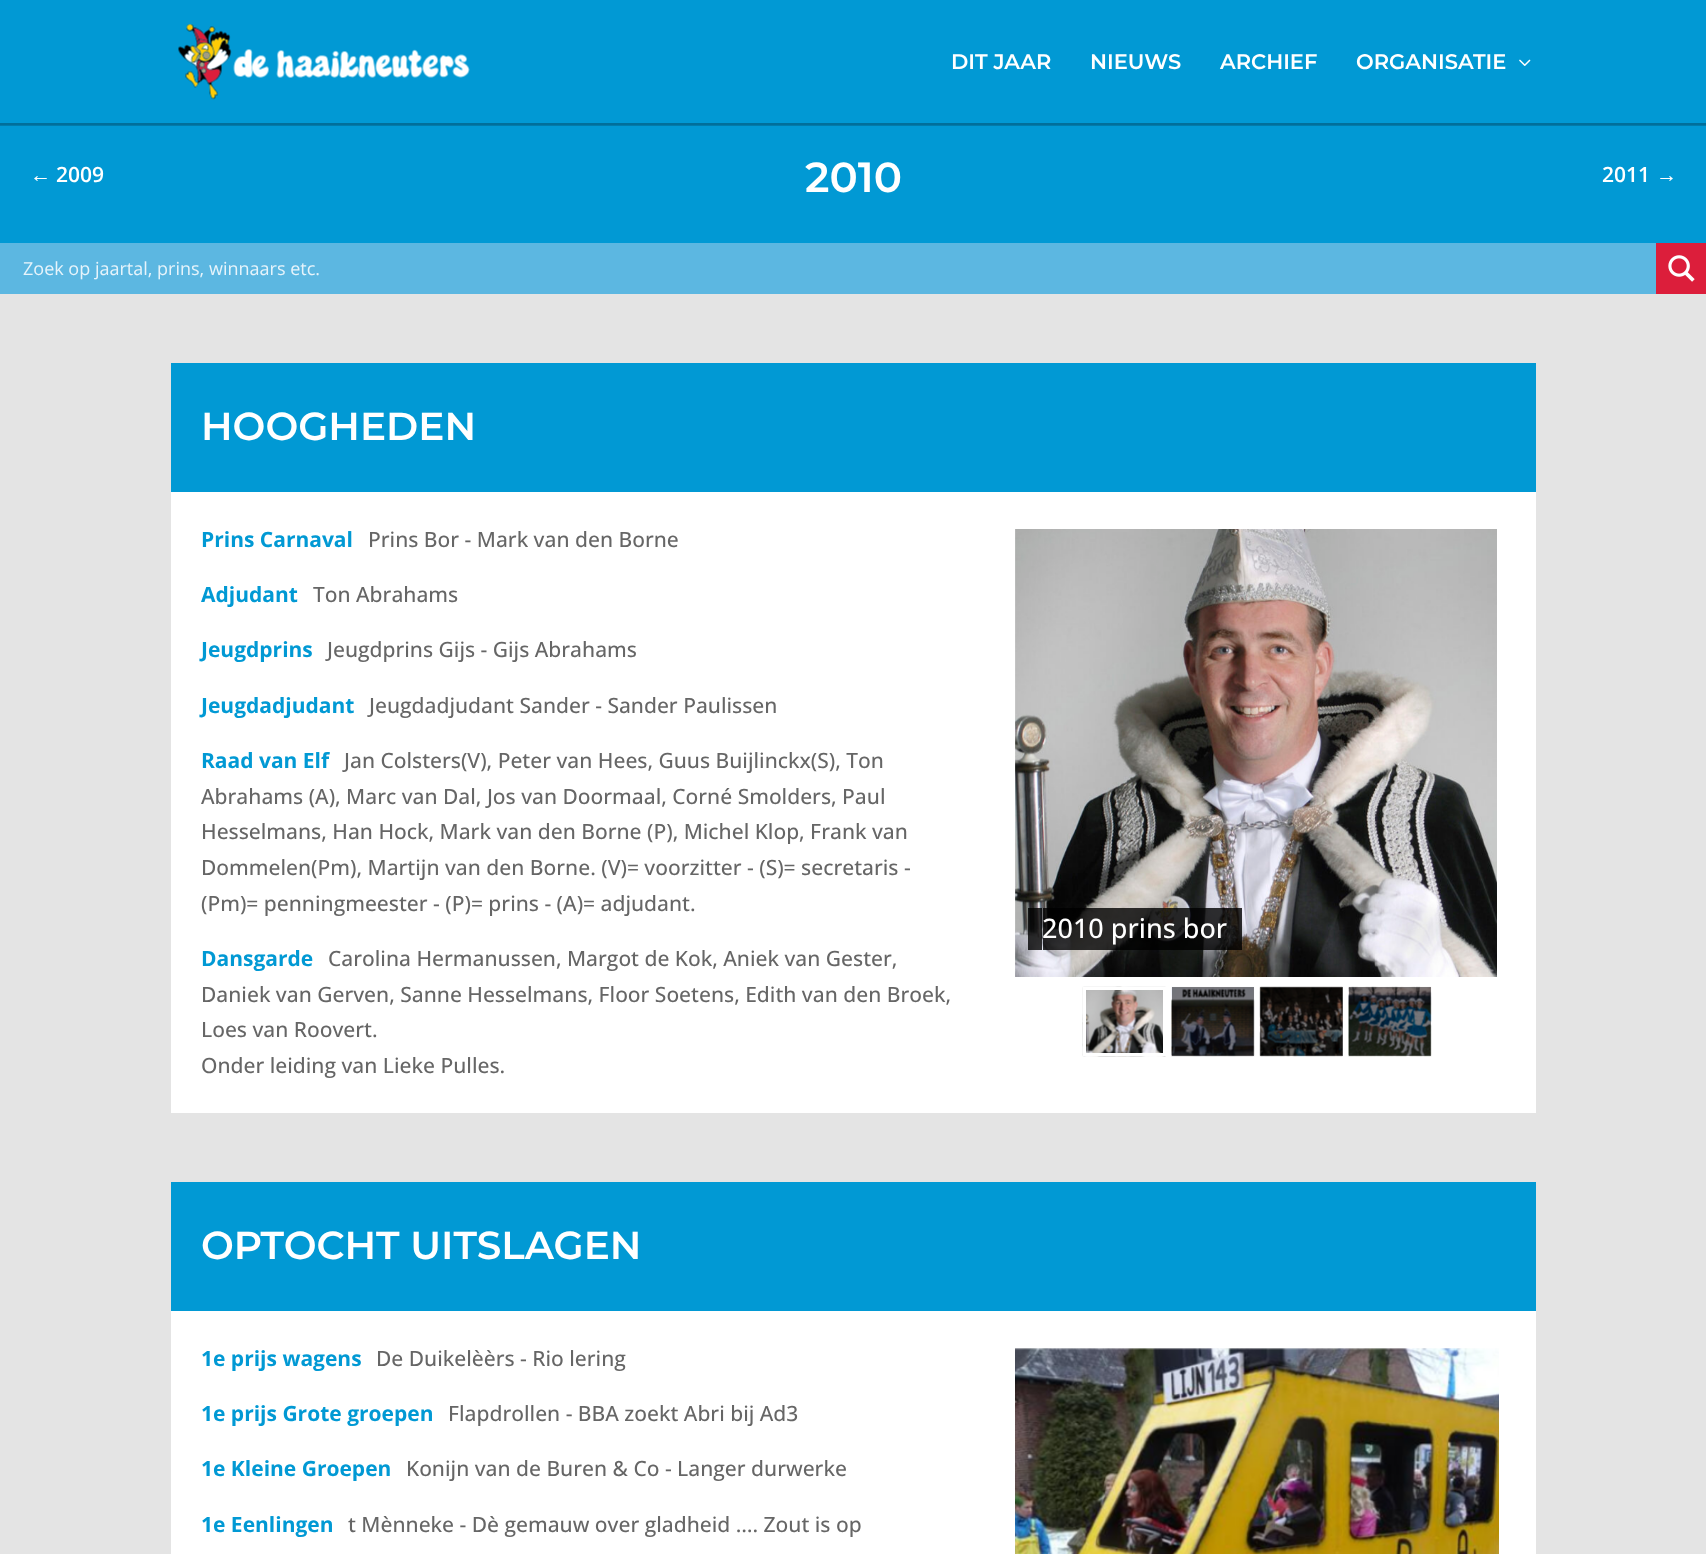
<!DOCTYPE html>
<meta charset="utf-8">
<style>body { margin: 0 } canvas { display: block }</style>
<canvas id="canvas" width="1706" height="1554"></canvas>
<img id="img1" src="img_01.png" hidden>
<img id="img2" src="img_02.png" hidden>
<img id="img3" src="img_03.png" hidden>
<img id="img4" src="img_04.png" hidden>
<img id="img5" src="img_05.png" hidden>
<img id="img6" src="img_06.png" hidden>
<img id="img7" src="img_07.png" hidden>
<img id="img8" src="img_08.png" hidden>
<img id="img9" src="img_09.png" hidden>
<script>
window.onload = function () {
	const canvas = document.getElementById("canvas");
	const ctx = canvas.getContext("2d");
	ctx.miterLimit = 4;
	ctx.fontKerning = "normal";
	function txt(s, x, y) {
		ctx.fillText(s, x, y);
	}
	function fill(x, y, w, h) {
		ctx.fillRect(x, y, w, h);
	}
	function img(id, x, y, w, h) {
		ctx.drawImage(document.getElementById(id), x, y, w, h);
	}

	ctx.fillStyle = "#017BAB";
	fill(0, 0, 1706, 1554);
	ctx.fillStyle = "#016F9A";
	fill(0, 123, 1706, 2);
	ctx.fillStyle = "#0199D4";
	fill(0, 0, 1706, 123);
	img("img1", 178, 24, 292, 76);
	img("img2", 1519, 59, 12, 7);
	fill(0, 126, 1706, 117);
	ctx.fillStyle = "#5CB7E1";
	fill(0, 243, 1656, 51);
	ctx.fillStyle = "#DC1E3B";
	fill(1656, 243, 50, 51);
	img("img3", 1668, 255, 27, 27);
	ctx.fillStyle = "#E4E4E4";
	fill(0, 294, 1706, 1260);
	ctx.fillStyle = "#0199D4";
	fill(171, 363, 1365, 129);
	ctx.fillStyle = "#FFFFFF";
	fill(171, 492, 1365, 621);
	ctx.fillStyle = "#808080";
	fill(1349, 987, 82, 69);
	fill(1260, 987, 83, 69);
	fill(1172, 987, 82, 69);
	img("img4", 1015, 529, 482, 448);
	ctx.fillStyle = "rgba(0, 0, 0, 0.8)";
	ctx.beginPath();
	ctx.moveTo(1028, 908);
	ctx.lineTo(1028, 950);
	ctx.lineTo(1212, 950);
	ctx.lineTo(1042, 950);
	ctx.lineTo(1042, 908);
	ctx.closePath();
	ctx.fill();
	ctx.beginPath();
	ctx.moveTo(1058, 950);
	ctx.lineTo(1242, 950);
	ctx.lineTo(1242, 908);
	ctx.lineTo(1227, 908);
	ctx.lineTo(1227, 950);
	ctx.closePath();
	ctx.fill();
	fill(1043, 908, 184, 42);
	img("img5", 1082, 986, 84, 71);
	ctx.strokeStyle = "#FFFFFF";
	ctx.lineWidth = 3;
	ctx.strokeRect(1084.5, 988.5, 80, 66);
	img("img6", 1171, 986, 84, 71);
	img("img7", 1259, 986, 84, 71);
	img("img8", 1348, 986, 84, 71);
	ctx.fillStyle = "#0199D4";
	fill(171, 1182, 1365, 129);
	ctx.fillStyle = "#FFFFFF";
	fill(171, 1311, 1365, 243);
	img("img9", 1015, 1348, 484, 206);
	ctx.font = "600 21px Montserrat";
	txt("DIT JAAR", 951, 69);
	txt("NIEUWS", 1090, 69);
	txt("ARCHIEF", 1220, 69);
	txt("ORGANISATIE", 1356, 69);
	ctx.font = "bold 21px Liberation Sans";
	txt("←", 30, 182);
	ctx.font = "600 21px Open Sans";
	txt("2009", 56, 182);
	ctx.font = "600 42px Montserrat";
	txt("2010", 805, 192);
	ctx.font = "600 21px Open Sans";
	txt("2011", 1602, 182);
	ctx.font = "bold 21px Liberation Sans";
	txt("→", 1656, 182);
	ctx.font = "18px Open Sans";
	ctx.fillStyle = "#E7F4FB";
	txt("Zoek op jaartal, prins, winnaars etc.", 23, 275);
	ctx.font = "600 39px Montserrat";
	ctx.fillStyle = "#FFFFFF";
	txt("HOOGHEDEN", 201, 440);
	ctx.font = "bold 21px Open Sans";
	ctx.fillStyle = "#0199D4";
	txt("Prins Carnaval", 201, 547);
	ctx.font = "500 21px Open Sans";
	ctx.fillStyle = "#666666";
	txt("Prins Bor - Mark van den Borne", 368, 547);
	ctx.font = "bold 21px Open Sans";
	ctx.fillStyle = "#0199D4";
	txt("Adjudant", 201, 602);
	ctx.font = "500 21px Open Sans";
	ctx.fillStyle = "#666666";
	txt("Ton Abrahams", 313, 602);
	ctx.font = "bold 21px Open Sans";
	ctx.fillStyle = "#0199D4";
	txt("Jeugdprins", 201, 657);
	ctx.font = "500 21px Open Sans";
	ctx.fillStyle = "#666666";
	txt("Jeugdprins Gijs - Gijs Abrahams", 327, 657);
	ctx.font = "bold 21px Open Sans";
	ctx.fillStyle = "#0199D4";
	txt("Jeugdadjudant", 201, 713);
	ctx.font = "500 21px Open Sans";
	ctx.fillStyle = "#666666";
	txt("Jeugdadjudant Sander - Sander Paulissen", 369, 713);
	ctx.font = "bold 21px Open Sans";
	ctx.fillStyle = "#0199D4";
	txt("Raad van Elf", 201, 768);
	ctx.font = "500 21px Open Sans";
	ctx.fillStyle = "#666666";
	txt("Jan Colsters(V), Peter van Hees, Guus Buijlinckx(S), Ton", 344, 768);
	txt("Abrahams (A), Marc van Dal, Jos van Doormaal, Corné Smolders, Paul", 201, 804);
	txt("Hesselmans, Han Hock, Mark van den Borne (P), Michel Klop, Frank van", 201, 839);
	txt("Dommelen(Pm), Martijn van den Borne. (V)= voorzitter - (S)= secretaris -", 201, 875);
	txt("(Pm)= penningmeester - (P)= prins - (A)= adjudant.", 201, 911);
	ctx.font = "bold 21px Open Sans";
	ctx.fillStyle = "#0199D4";
	txt("Dansgarde", 201, 966);
	ctx.font = "500 21px Open Sans";
	ctx.fillStyle = "#666666";
	txt("Carolina Hermanussen, Margot de Kok, Aniek van Gester,", 328, 966);
	txt("Daniek van Gerven, Sanne Hesselmans, Floor Soetens, Edith van den Broek,", 201, 1002);
	txt("Loes van Roovert.", 201, 1037);
	txt("Onder leiding van Lieke Pulles.", 201, 1073);
	ctx.font = "500 27px Open Sans";
	ctx.fillStyle = "#FFFFFF";
	txt("2010 prins bor", 1042, 938);
	ctx.font = "600 39px Montserrat";
	txt("OPTOCHT UITSLAGEN", 201, 1259);
	ctx.font = "bold 21px Open Sans";
	ctx.fillStyle = "#0199D4";
	txt("1e prijs wagens", 201, 1366);
	ctx.font = "500 21px Open Sans";
	ctx.fillStyle = "#666666";
	txt("De Duikelèèrs - Rio lering", 376, 1366);
	ctx.font = "bold 21px Open Sans";
	ctx.fillStyle = "#0199D4";
	txt("1e prijs Grote groepen", 201, 1421);
	ctx.font = "500 21px Open Sans";
	ctx.fillStyle = "#666666";
	txt("Flapdrollen - BBA zoekt Abri bij Ad3", 448, 1421);
	ctx.font = "bold 21px Open Sans";
	ctx.fillStyle = "#0199D4";
	txt("1e Kleine Groepen", 201, 1476);
	ctx.font = "500 21px Open Sans";
	ctx.fillStyle = "#666666";
	txt("Konijn van de Buren & Co - Langer durwerke", 406, 1476);
	ctx.font = "bold 21px Open Sans";
	ctx.fillStyle = "#0199D4";
	txt("1e Eenlingen", 201, 1532);
	ctx.font = "500 21px Open Sans";
	ctx.fillStyle = "#666666";
	txt("t Mènneke - Dè gemauw over gladheid …. Zout is op", 348, 1532);
};
</script>
